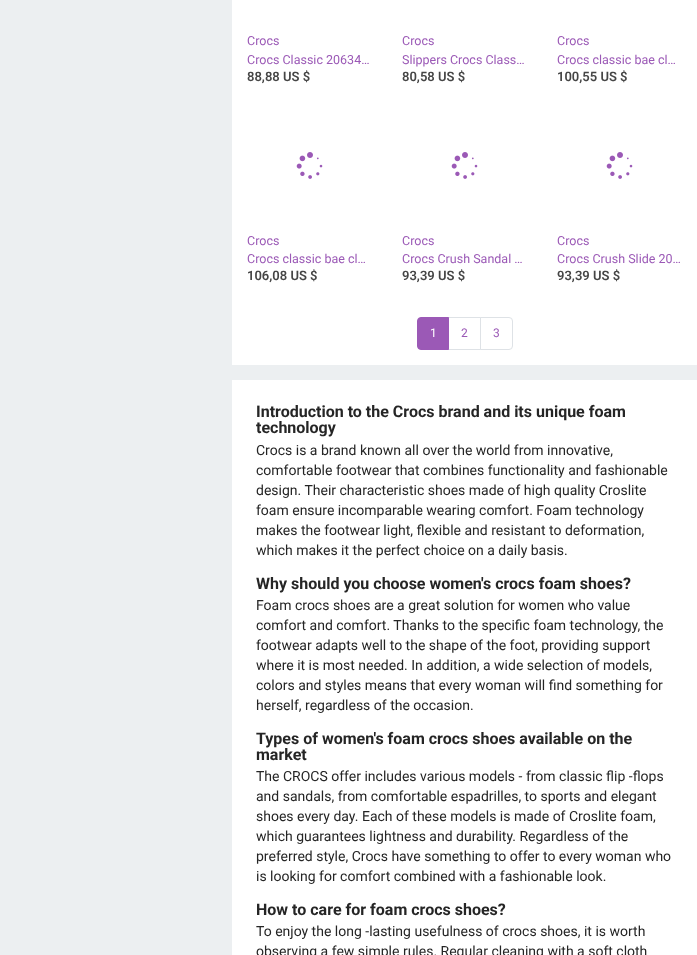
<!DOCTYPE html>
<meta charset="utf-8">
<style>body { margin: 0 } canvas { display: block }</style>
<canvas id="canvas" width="697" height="955"></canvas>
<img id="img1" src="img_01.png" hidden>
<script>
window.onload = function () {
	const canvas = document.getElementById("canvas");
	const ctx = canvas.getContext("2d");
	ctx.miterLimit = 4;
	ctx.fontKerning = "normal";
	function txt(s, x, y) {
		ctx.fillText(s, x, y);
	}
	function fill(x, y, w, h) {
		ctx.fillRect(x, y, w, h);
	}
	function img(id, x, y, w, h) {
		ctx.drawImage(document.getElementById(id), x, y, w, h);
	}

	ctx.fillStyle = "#ECEFF1";
	fill(0, 0, 697, 955);
	ctx.fillStyle = "#FFFFFF";
	fill(232, 0, 465, 365);
	img("img1", 296, 152, 27, 27);
	img("img1", 451, 152, 27, 27);
	img("img1", 606, 152, 27, 27);
	ctx.strokeStyle = "#DEE2E6";
	ctx.strokeRect(448.5, 317.5, 32, 32);
	ctx.fillStyle = "#9B59B6";
	ctx.beginPath();
	ctx.roundRect(417.5, 317.5, 31, 32, [3.5, 0, 0, 3.5]);
	ctx.fill();
	ctx.strokeStyle = "#9B59B6";
	ctx.stroke();
	ctx.fillStyle = "#FFFFFF";
	ctx.beginPath();
	ctx.roundRect(480.5, 317.5, 32, 32, [0, 3.5, 3.5, 0]);
	ctx.fill();
	ctx.strokeStyle = "#DEE2E6";
	ctx.stroke();
	fill(232, 380, 465, 575);
	ctx.font = "12.5px Roboto";
	ctx.fillStyle = "#9B59B6";
	txt("Crocs", 247, 45);
	txt("Crocs Classic 20634…", 247, 64);
	ctx.font = "600 13px Roboto";
	ctx.fillStyle = "#454545";
	txt("88,88 US $", 247, 81);
	ctx.font = "12.5px Roboto";
	ctx.fillStyle = "#9B59B6";
	txt("Crocs", 402, 45);
	txt("Slippers Crocs Class…", 402, 64);
	ctx.font = "600 13px Roboto";
	ctx.fillStyle = "#454545";
	txt("80,58 US $", 402, 81);
	ctx.font = "12.5px Roboto";
	ctx.fillStyle = "#9B59B6";
	txt("Crocs", 557, 45);
	txt("Crocs classic bae cl…", 557, 64);
	ctx.font = "600 13px Roboto";
	ctx.fillStyle = "#454545";
	txt("100,55 US $", 557, 81);
	ctx.font = "12.5px Roboto";
	ctx.fillStyle = "#9B59B6";
	txt("Crocs", 247, 245);
	txt("Crocs classic bae cl…", 247, 263);
	ctx.font = "600 13px Roboto";
	ctx.fillStyle = "#454545";
	txt("106,08 US $", 247, 280);
	ctx.font = "12.5px Roboto";
	ctx.fillStyle = "#9B59B6";
	txt("Crocs", 402, 245);
	txt("Crocs Crush Sandal …", 402, 263);
	ctx.font = "600 13px Roboto";
	ctx.fillStyle = "#454545";
	txt("93,39 US $", 402, 280);
	ctx.font = "12.5px Roboto";
	ctx.fillStyle = "#9B59B6";
	txt("Crocs", 557, 245);
	txt("Crocs Crush Slide 20…", 557, 263);
	ctx.font = "600 13px Roboto";
	ctx.fillStyle = "#454545";
	txt("93,39 US $", 557, 280);
	ctx.font = "12px Roboto";
	ctx.fillStyle = "#FFFFFF";
	txt("1", 430, 337);
	ctx.fillStyle = "#9B59B6";
	txt("2", 461, 337);
	txt("3", 493, 337);
	ctx.font = "bold 16px Roboto";
	ctx.fillStyle = "#252525";
	txt("Introduction to the Crocs brand and its unique foam", 256, 417);
	txt("technology", 256, 433);
	ctx.font = "14px Roboto";
	txt("Crocs is a brand known all over the world from innovative,", 256, 455);
	txt("comfortable footwear that combines functionality and fashionable", 256, 475);
	txt("design. Their characteristic shoes made of high quality Croslite", 256, 495);
	txt("foam ensure incomparable wearing comfort. Foam technology", 256, 515);
	txt("makes the footwear light, flexible and resistant to deformation,", 256, 535);
	txt("which makes it the perfect choice on a daily basis.", 256, 555);
	ctx.font = "bold 16px Roboto";
	txt("Why should you choose women's crocs foam shoes?", 256, 589);
	ctx.font = "14px Roboto";
	txt("Foam crocs shoes are a great solution for women who value", 256, 610);
	txt("comfort and comfort. Thanks to the specific foam technology, the", 256, 630);
	txt("footwear adapts well to the shape of the foot, providing support", 256, 650);
	txt("where it is most needed. In addition, a wide selection of models,", 256, 670);
	txt("colors and styles means that every woman will find something for", 256, 690);
	txt("herself, regardless of the occasion.", 256, 710);
	ctx.font = "bold 16px Roboto";
	txt("Types of women's foam crocs shoes available on the", 256, 744);
	txt("market", 256, 760);
	ctx.font = "14px Roboto";
	txt("The CROCS offer includes various models - from classic flip -flops", 256, 781);
	txt("and sandals, from comfortable espadrilles, to sports and elegant", 256, 801);
	txt("shoes every day. Each of these models is made of Croslite foam,", 256, 821);
	txt("which guarantees lightness and durability. Regardless of the", 256, 841);
	txt("preferred style, Crocs have something to offer to every woman who", 256, 861);
	txt("is looking for comfort combined with a fashionable look.", 256, 881);
	ctx.font = "bold 16px Roboto";
	txt("How to care for foam crocs shoes?", 256, 915);
	ctx.font = "14px Roboto";
	txt("To enjoy the long -lasting usefulness of crocs shoes, it is worth", 256, 936);
	txt("observing a few simple rules. Regular cleaning with a soft cloth", 256, 956);
};
</script>
